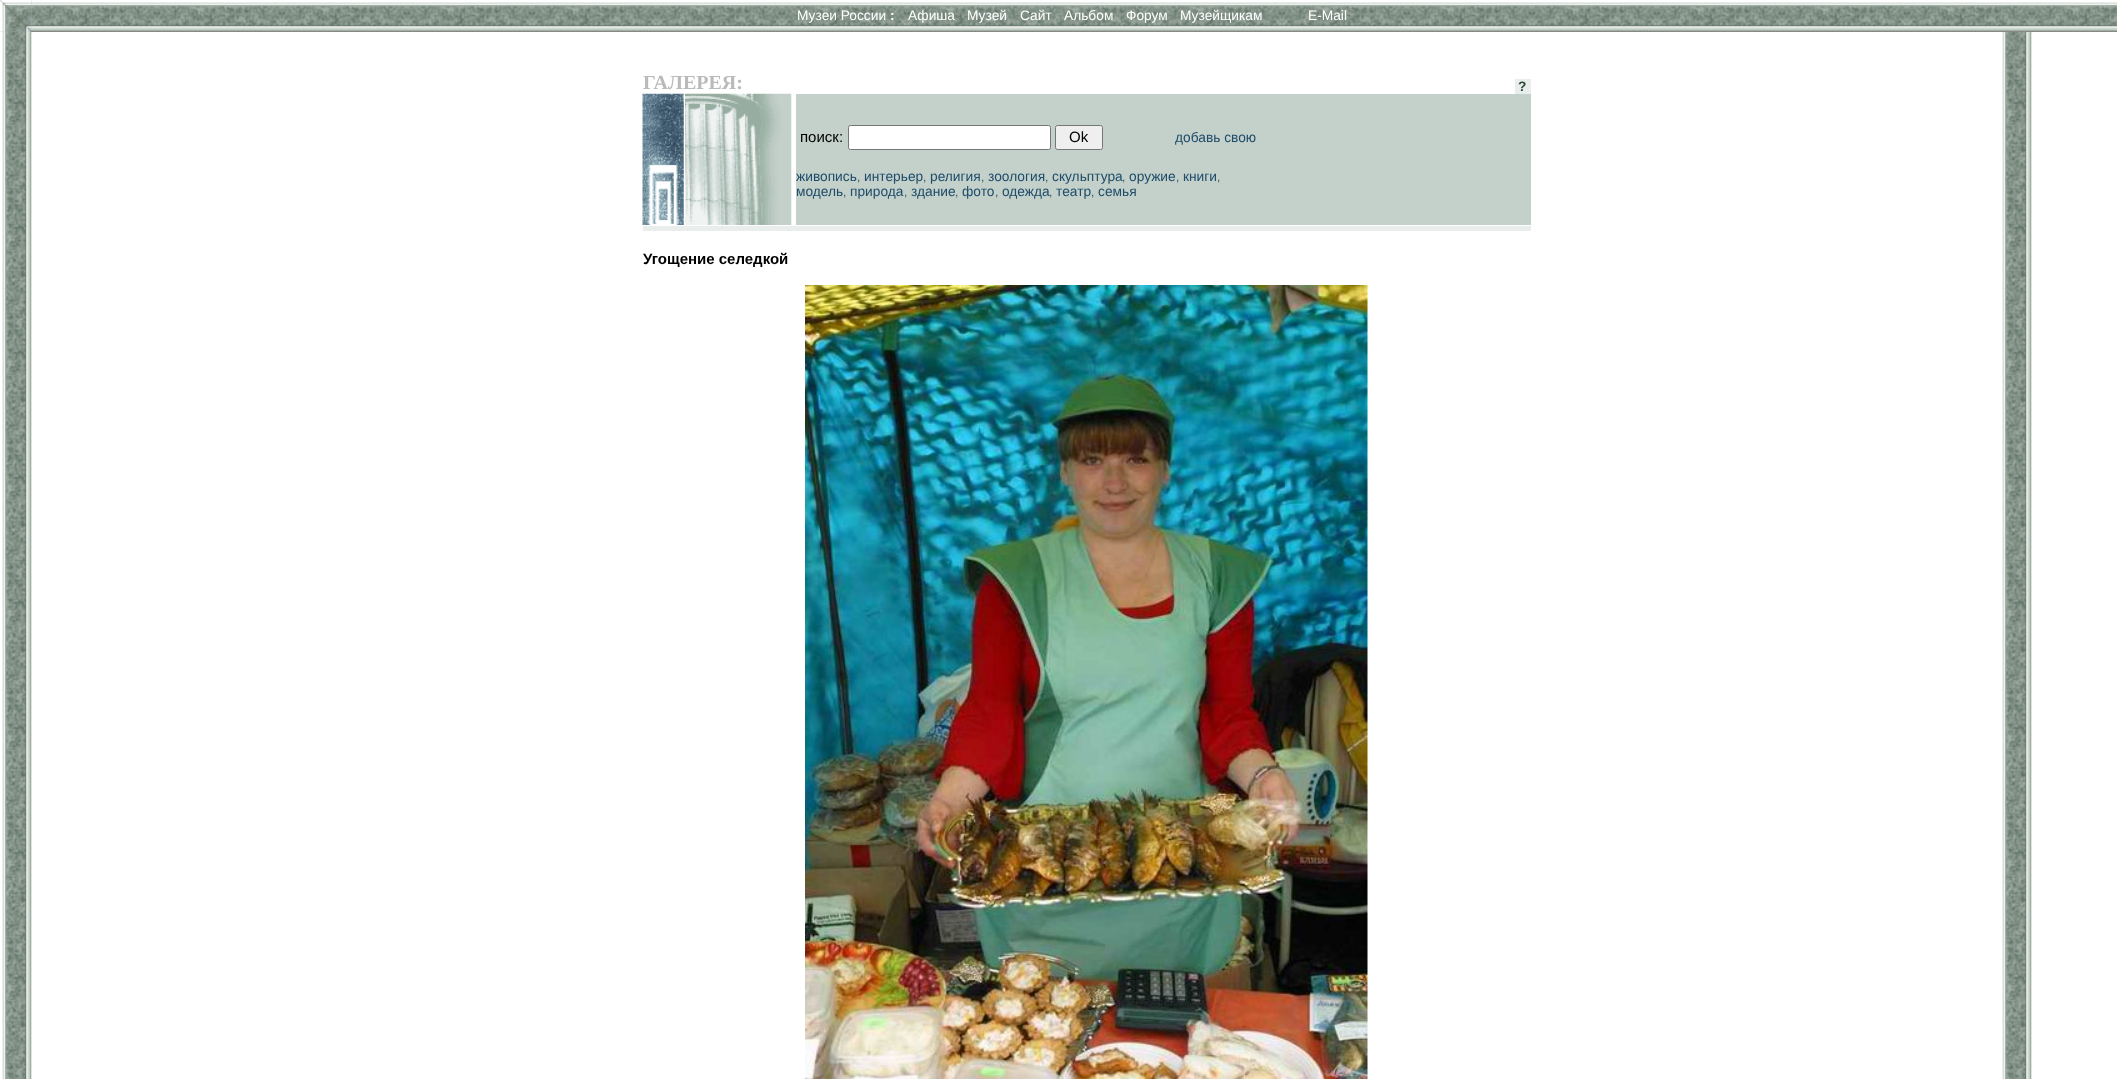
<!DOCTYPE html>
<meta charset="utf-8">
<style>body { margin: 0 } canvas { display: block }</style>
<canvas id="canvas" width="2117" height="1079"></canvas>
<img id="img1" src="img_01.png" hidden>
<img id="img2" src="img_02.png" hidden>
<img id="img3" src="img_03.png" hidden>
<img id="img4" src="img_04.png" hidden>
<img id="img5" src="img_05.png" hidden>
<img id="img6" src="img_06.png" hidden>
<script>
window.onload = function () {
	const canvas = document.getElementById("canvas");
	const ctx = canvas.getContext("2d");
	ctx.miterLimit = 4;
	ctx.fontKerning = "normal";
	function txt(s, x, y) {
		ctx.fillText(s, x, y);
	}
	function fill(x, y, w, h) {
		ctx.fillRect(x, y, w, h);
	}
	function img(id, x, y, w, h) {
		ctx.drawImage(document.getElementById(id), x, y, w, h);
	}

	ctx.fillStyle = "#FFFFFF";
	fill(0, 0, 2117, 1079);
	img("img1", 2, 0, 2030, 1079);
	img("img2", 0, 0, 32, 32);
	img("img3", 31, 0, 2086, 31);
	ctx.fillStyle = "#888888";
	fill(31, 31, 2086, 1);
	ctx.fillStyle = "#E9EDEB";
	fill(1515, 79, 16, 15);
	img("img4", 642, 93, 42, 132);
	img("img5", 685, 93, 107, 132);
	ctx.fillStyle = "#C4D0CA";
	fill(796, 94, 735, 131);
	ctx.fillStyle = "#FFFFFF";
	ctx.beginPath();
	ctx.roundRect(848.5, 125.5, 202, 24, 2);
	ctx.fill();
	ctx.strokeStyle = "#767676";
	ctx.stroke();
	ctx.fillStyle = "#EFEFEF";
	ctx.beginPath();
	ctx.roundRect(1055.5, 125.5, 47, 24, 2);
	ctx.fill();
	ctx.stroke();
	ctx.fillStyle = "#E9EDEB";
	fill(643, 226, 888, 5);
	img("img6", 805, 285, 563, 794);
	ctx.font = "13.75px Liberation Sans";
	ctx.fillStyle = "#FFFFFF";
	txt("Музеи России", 797, 20);
	ctx.font = "bold 13.75px Liberation Sans";
	txt(":", 890, 20);
	ctx.font = "13.75px Liberation Sans";
	txt("Афиша", 908, 20);
	txt("Музей", 967, 20);
	txt("Сайт", 1020, 20);
	txt("Альбом", 1064, 20);
	txt("Форум", 1126, 20);
	txt("Музейщикам", 1180, 20);
	txt("E-Mail", 1308, 20);
	ctx.font = "bold 20px Liberation Serif";
	ctx.fillStyle = "#BABABA";
	txt("ГАЛЕРЕЯ:", 643, 89);
	ctx.font = "bold 13.75px Liberation Sans";
	ctx.fillStyle = "#2A4931";
	txt("?", 1518, 91);
	ctx.font = "15px Liberation Sans";
	ctx.fillStyle = "#000000";
	txt("поиск:", 800, 142);
	txt("Ok", 1069, 142);
	ctx.font = "13.75px Liberation Sans";
	ctx.fillStyle = "#1E4C6A";
	txt("добавь свою", 1175, 142);
	txt("живопись", 796, 181);
	ctx.font = "12px Liberation Sans";
	ctx.fillStyle = "#39595C";
	txt(",", 857, 181);
	ctx.font = "13.75px Liberation Sans";
	ctx.fillStyle = "#1E4C6A";
	txt("интерьер", 864, 181);
	ctx.font = "12px Liberation Sans";
	ctx.fillStyle = "#39595C";
	txt(",", 923, 181);
	ctx.font = "13.75px Liberation Sans";
	ctx.fillStyle = "#1E4C6A";
	txt("религия", 930, 181);
	ctx.font = "12px Liberation Sans";
	ctx.fillStyle = "#39595C";
	txt(",", 981, 181);
	ctx.font = "13.75px Liberation Sans";
	ctx.fillStyle = "#1E4C6A";
	txt("зоология", 988, 181);
	ctx.font = "12px Liberation Sans";
	ctx.fillStyle = "#39595C";
	txt(",", 1045, 181);
	ctx.font = "13.75px Liberation Sans";
	ctx.fillStyle = "#1E4C6A";
	txt("скульптура", 1052, 181);
	ctx.font = "12px Liberation Sans";
	ctx.fillStyle = "#39595C";
	txt(",", 1122, 181);
	ctx.font = "13.75px Liberation Sans";
	ctx.fillStyle = "#1E4C6A";
	txt("оружие", 1129, 181);
	ctx.font = "12px Liberation Sans";
	ctx.fillStyle = "#39595C";
	txt(",", 1176, 181);
	ctx.font = "13.75px Liberation Sans";
	ctx.fillStyle = "#1E4C6A";
	txt("книги", 1183, 181);
	ctx.font = "12px Liberation Sans";
	ctx.fillStyle = "#39595C";
	txt(",", 1217, 181);
	ctx.font = "13.75px Liberation Sans";
	ctx.fillStyle = "#1E4C6A";
	txt("модель", 796, 196);
	ctx.font = "12px Liberation Sans";
	ctx.fillStyle = "#39595C";
	txt(",", 843, 196);
	ctx.font = "13.75px Liberation Sans";
	ctx.fillStyle = "#1E4C6A";
	txt("природа", 850, 196);
	ctx.font = "12px Liberation Sans";
	ctx.fillStyle = "#39595C";
	txt(",", 904, 196);
	ctx.font = "13.75px Liberation Sans";
	ctx.fillStyle = "#1E4C6A";
	txt("здание", 911, 196);
	ctx.font = "12px Liberation Sans";
	ctx.fillStyle = "#39595C";
	txt(",", 955, 196);
	ctx.font = "13.75px Liberation Sans";
	ctx.fillStyle = "#1E4C6A";
	txt("фото", 962, 196);
	ctx.font = "12px Liberation Sans";
	ctx.fillStyle = "#39595C";
	txt(",", 995, 196);
	ctx.font = "13.75px Liberation Sans";
	ctx.fillStyle = "#1E4C6A";
	txt("одежда", 1002, 196);
	ctx.font = "12px Liberation Sans";
	ctx.fillStyle = "#39595C";
	txt(",", 1049, 196);
	ctx.font = "13.75px Liberation Sans";
	ctx.fillStyle = "#1E4C6A";
	txt("театр", 1056, 196);
	ctx.font = "12px Liberation Sans";
	ctx.fillStyle = "#39595C";
	txt(",", 1091, 196);
	ctx.font = "13.75px Liberation Sans";
	ctx.fillStyle = "#1E4C6A";
	txt("семья", 1098, 196);
	ctx.font = "bold 15px Liberation Sans";
	ctx.fillStyle = "#000000";
	txt("Угощение селедкой", 643, 264);
};
</script>
